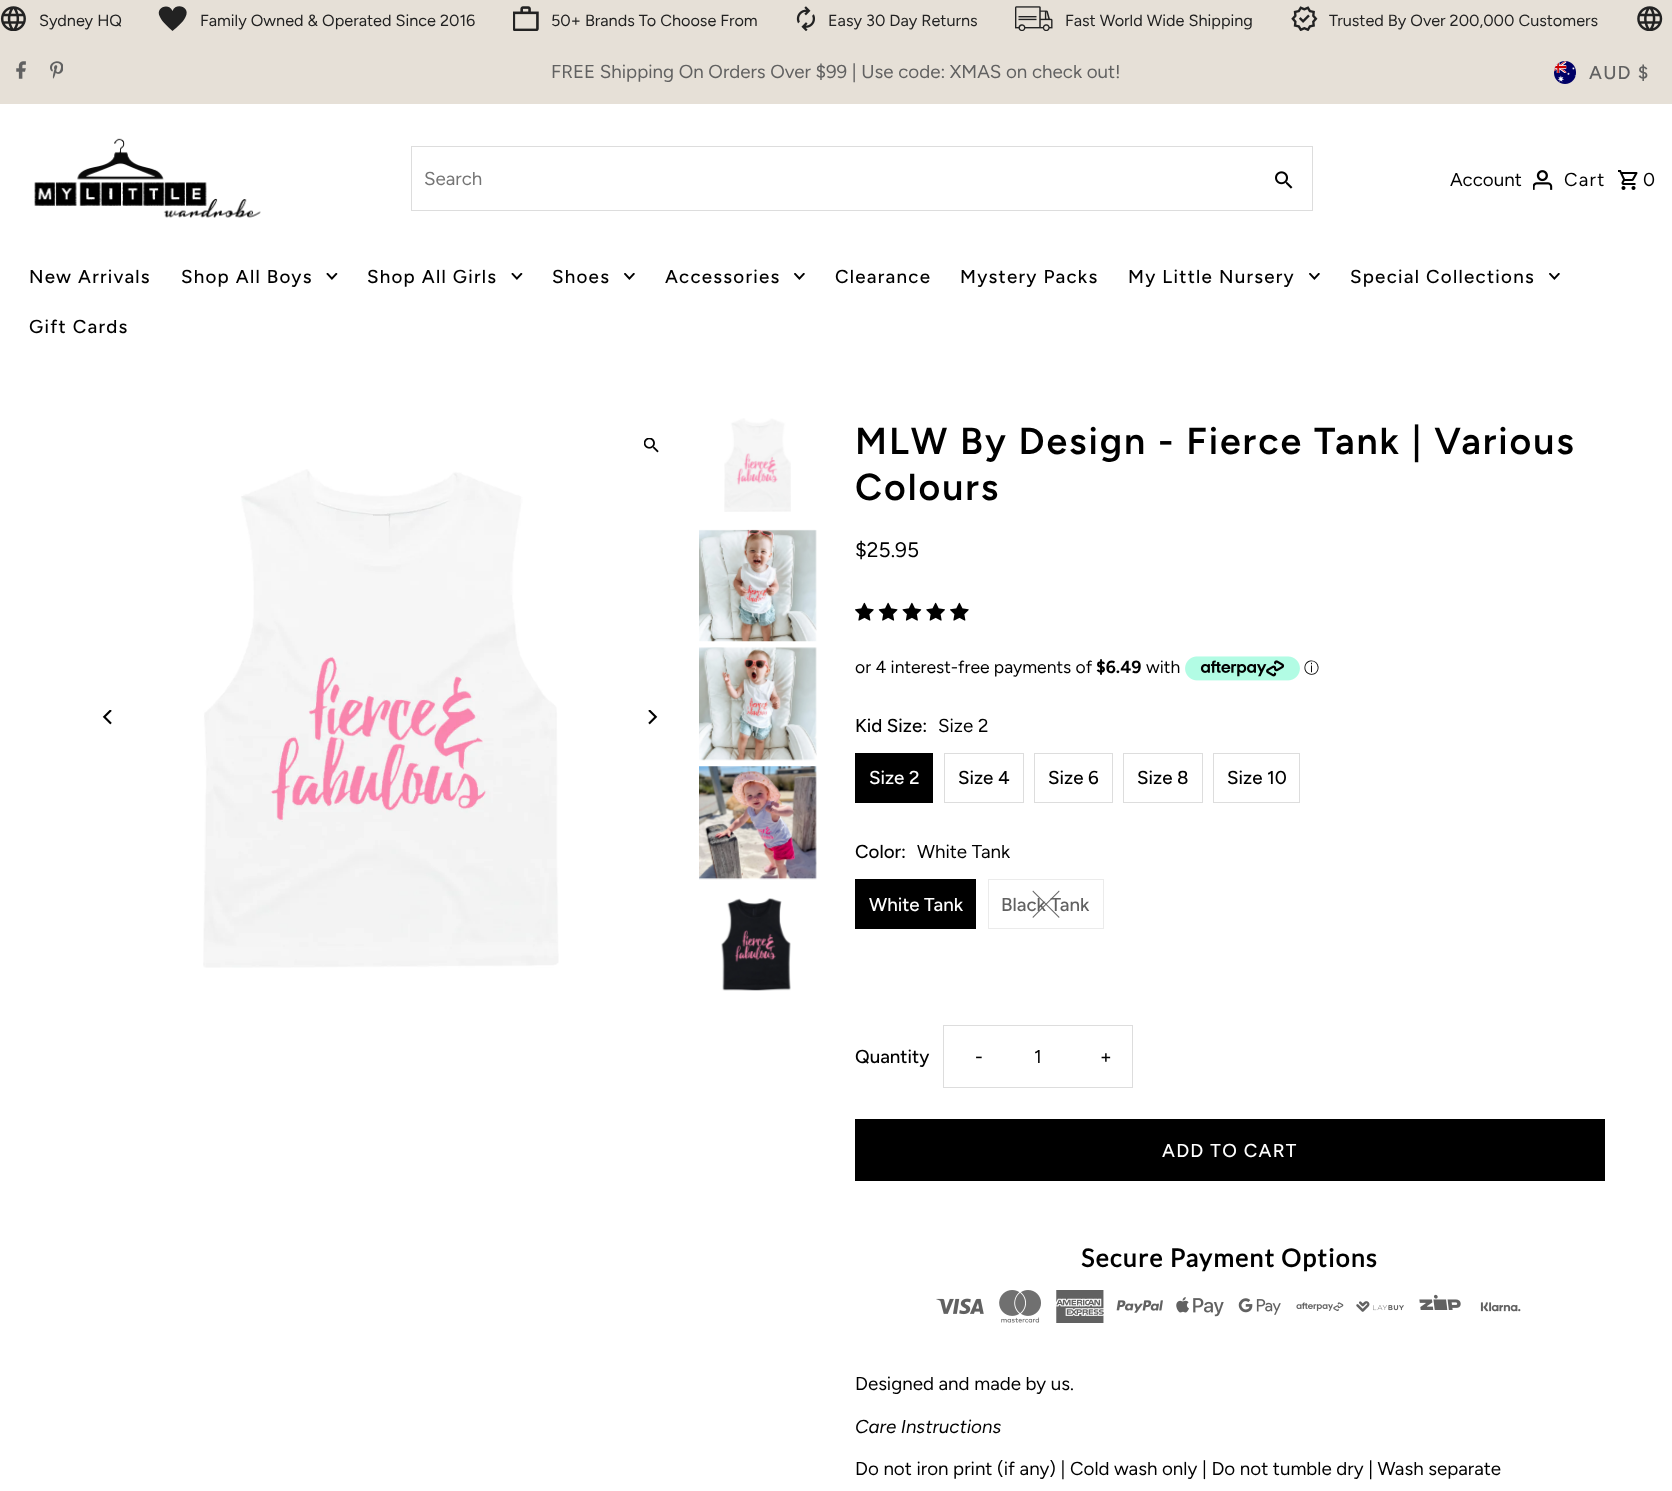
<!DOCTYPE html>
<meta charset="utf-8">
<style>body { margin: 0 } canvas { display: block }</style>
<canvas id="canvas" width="1672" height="1491"></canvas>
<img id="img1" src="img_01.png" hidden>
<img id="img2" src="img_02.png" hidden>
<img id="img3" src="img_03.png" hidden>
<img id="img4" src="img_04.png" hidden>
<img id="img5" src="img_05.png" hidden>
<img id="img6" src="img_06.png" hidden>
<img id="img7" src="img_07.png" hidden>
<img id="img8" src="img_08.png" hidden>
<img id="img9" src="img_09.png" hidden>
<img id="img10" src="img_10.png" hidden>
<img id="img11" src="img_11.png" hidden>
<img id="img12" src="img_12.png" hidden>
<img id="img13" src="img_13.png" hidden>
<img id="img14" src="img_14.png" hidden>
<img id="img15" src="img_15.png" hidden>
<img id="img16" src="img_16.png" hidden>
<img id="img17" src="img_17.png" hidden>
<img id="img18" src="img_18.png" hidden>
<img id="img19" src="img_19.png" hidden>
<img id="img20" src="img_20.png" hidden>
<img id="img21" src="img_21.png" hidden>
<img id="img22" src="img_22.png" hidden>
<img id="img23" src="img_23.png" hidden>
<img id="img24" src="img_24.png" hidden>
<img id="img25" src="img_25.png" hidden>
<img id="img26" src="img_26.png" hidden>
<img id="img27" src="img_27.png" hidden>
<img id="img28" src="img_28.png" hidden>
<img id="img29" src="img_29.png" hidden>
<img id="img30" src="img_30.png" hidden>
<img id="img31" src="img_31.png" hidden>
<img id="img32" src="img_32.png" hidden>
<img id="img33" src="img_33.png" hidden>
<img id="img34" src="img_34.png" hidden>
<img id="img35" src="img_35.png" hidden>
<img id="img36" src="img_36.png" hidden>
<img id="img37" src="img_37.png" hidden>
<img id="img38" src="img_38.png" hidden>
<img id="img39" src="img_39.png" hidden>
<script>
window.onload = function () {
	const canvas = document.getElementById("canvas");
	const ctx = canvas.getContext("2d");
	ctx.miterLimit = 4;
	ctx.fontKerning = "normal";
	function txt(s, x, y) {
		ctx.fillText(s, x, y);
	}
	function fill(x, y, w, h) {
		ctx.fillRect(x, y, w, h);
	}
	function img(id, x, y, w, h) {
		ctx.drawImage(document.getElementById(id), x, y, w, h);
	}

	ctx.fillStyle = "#FFFFFF";
	fill(0, 0, 1672, 1491);
	ctx.fillStyle = "#E6E0D7";
	fill(0, 0, 1672, 104);
	img("img1", 0, 6, 26, 25);
	ctx.fillStyle = "#222222";
	ctx.beginPath();
	ctx.moveTo(172.5, 11);
	ctx.bezierCurveTo(169, 2, 154.5, 7.5, 160, 17);
	ctx.bezierCurveTo(162.5, 22.5, 168.5, 27, 172.5, 31);
	ctx.bezierCurveTo(177, 27, 183, 22.5, 185.5, 17);
	ctx.bezierCurveTo(191, 7, 176, 2, 172.5, 11);
	ctx.closePath();
	ctx.fill();
	img("img2", 513, 6, 26, 25);
	img("img3", 796, 6, 19, 25);
	img("img4", 1015, 6, 38, 25);
	img("img5", 1291, 6, 27, 25);
	img("img6", 1637, 6, 26, 25);
	img("img7", 16, 61, 10, 18);
	img("img8", 50, 61, 13, 18);
	img("img9", 1554, 61, 22, 23);
	img("img10", 34, 138, 227, 80);
	ctx.strokeStyle = "#DDDDDD";
	ctx.strokeRect(411.5, 146.5, 901, 64);
	img("img11", 1275, 171, 18, 18);
	img("img12", 1533, 170, 20, 20);
	img("img13", 1618, 170, 20, 20);
	img("img14", 326, 273, 12, 7);
	img("img14", 511, 273, 12, 7);
	img("img15", 624, 273, 11, 7);
	img("img15", 794, 273, 11, 7);
	img("img15", 1309, 273, 11, 7);
	img("img15", 1549, 273, 11, 7);
	img("img16", 102, 710, 10, 15);
	img("img17", 644, 438, 15, 15);
	img("img18", 203, 469, 356, 499);
	img("img19", 648, 710, 10, 15);
	img("img20", 724, 418, 67, 94);
	img("img21", 699, 529, 118, 113);
	img("img22", 699, 647, 118, 114);
	img("img23", 699, 766, 118, 114);
	img("img24", 721, 898, 70, 93);
	img("img25", 855, 602, 19, 19);
	img("img26", 878, 602, 20, 19);
	img("img27", 902, 602, 20, 19);
	img("img28", 926, 602, 19, 19);
	img("img25", 950, 602, 19, 19);
	img("img29", 1185, 656, 115, 25);
	ctx.fillStyle = "#000000";
	fill(855, 753, 78, 50);
	ctx.strokeRect(944.5, 753.5, 79, 49);
	ctx.strokeRect(1034.5, 753.5, 78, 49);
	ctx.strokeRect(1123.5, 753.5, 79, 49);
	ctx.strokeRect(1213.5, 753.5, 86, 49);
	fill(855, 879, 121, 50);
	ctx.strokeStyle = "#EBEBEB";
	ctx.strokeRect(988.5, 879.5, 115, 49);
	ctx.strokeStyle = "#DDDDDD";
	ctx.strokeRect(943.5, 1025.5, 189, 62);
	fill(855, 1119, 750, 62);
	img("img30", 936, 1298, 48, 17);
	img("img31", 999, 1290, 42, 33);
	img("img32", 1056, 1290, 48, 33);
	img("img33", 1116, 1300, 47, 13);
	img("img34", 1176, 1297, 48, 20);
	img("img35", 1238, 1298, 43, 17);
	img("img36", 1296, 1302, 48, 10);
	img("img37", 1356, 1301, 48, 11);
	img("img38", 1419, 1294, 42, 16);
	img("img39", 1480, 1302, 41, 10);
	ctx.font = "16.25px Figtree";
	ctx.fillStyle = "#222222";
	txt("Sydney HQ", 39, 26);
	txt("Family Owned & Operated Since 2016", 200, 26);
	txt("50+ Brands To Choose From", 551, 26);
	txt("Easy 30 Day Returns", 828, 26);
	txt("Fast World Wide Shipping", 1065, 26);
	txt("Trusted By Over 200,000 Customers", 1329, 26);
	ctx.font = "18.75px Figtree";
	ctx.fillStyle = "#616161";
	txt("FREE Shipping On Orders Over $99 | Use code: XMAS on check out!", 551, 78);
	ctx.letterSpacing = "1.25px";
	ctx.font = "500 18.75px Figtree";
	txt("AUD $", 1589, 79);
	ctx.letterSpacing = "0px";
	ctx.font = "18.75px Figtree";
	ctx.fillStyle = "#757575";
	txt("Search", 424, 185);
	ctx.fillStyle = "#000000";
	txt("Account", 1450, 186);
	ctx.letterSpacing = "1.25px";
	txt("Cart", 1564, 186);
	txt("0", 1643, 186);
	ctx.font = "500 18.75px Figtree";
	txt("New Arrivals", 29, 283);
	txt("Shop All Boys", 181, 283);
	txt("Shop All Girls", 367, 283);
	txt("Shoes", 552, 283);
	txt("Accessories", 665, 283);
	txt("Clearance", 835, 283);
	txt("Mystery Packs", 960, 283);
	txt("My Little Nursery", 1128, 283);
	txt("Special Collections", 1350, 283);
	txt("Gift Cards", 29, 333);
	ctx.letterSpacing = "1.9px";
	ctx.font = "600 37.5px Figtree";
	txt("MLW By Design - Fierce Tank | Various", 855, 454);
	txt("Colours", 855, 500);
	ctx.letterSpacing = "0px";
	ctx.font = "21px Figtree";
	txt("$25.95", 855, 557);
	ctx.font = "17.5px Figtree";
	txt("or 4 interest-free payments of", 855, 673);
	ctx.font = "bold 17.5px Figtree";
	txt("$6.49", 1096, 673);
	ctx.font = "17.5px Figtree";
	txt("with", 1146, 673);
	ctx.font = "500 15px WenQuanYi Zen Hei";
	txt("ⓘ", 1304, 673);
	ctx.font = "500 18.75px Figtree";
	txt("Kid Size:", 855, 732);
	ctx.font = "18.75px Figtree";
	txt("Size 2", 938, 732);
	ctx.font = "500 18.75px Figtree";
	ctx.fillStyle = "#FFFFFF";
	txt("Size 2", 869, 784);
	ctx.fillStyle = "#000000";
	txt("Size 4", 958, 784);
	txt("Size 6", 1048, 784);
	txt("Size 8", 1137, 784);
	txt("Size 10", 1227, 784);
	txt("Color:", 855, 858);
	ctx.font = "18.75px Figtree";
	txt("White Tank", 917, 858);
	ctx.font = "500 18.75px Figtree";
	ctx.fillStyle = "#FFFFFF";
	txt("White Tank", 869, 911);
	ctx.fillStyle = "#616161";
	txt("Black Tank", 1001, 911);
	ctx.fillStyle = "#666666";
	ctx.beginPath();
	ctx.moveTo(1059, 890.5);
	ctx.lineTo(1059.5, 891.5);
	ctx.lineTo(1033, 918);
	ctx.lineTo(1032.5, 917);
	ctx.closePath();
	ctx.fill();
	ctx.beginPath();
	ctx.moveTo(1059.5, 917);
	ctx.lineTo(1059, 918);
	ctx.lineTo(1032.5, 891.5);
	ctx.lineTo(1033, 890.5);
	ctx.closePath();
	ctx.fill();
	ctx.fillStyle = "#000000";
	txt("Quantity", 855, 1063);
	ctx.letterSpacing = "1.25px";
	txt("-", 975, 1063);
	ctx.letterSpacing = "0px";
	ctx.font = "18.75px Figtree";
	txt("1", 1034, 1063);
	ctx.letterSpacing = "1.25px";
	ctx.font = "500 18.75px Figtree";
	txt("+", 1100, 1063);
	ctx.fillStyle = "#FFFFFF";
	txt("ADD TO CART", 1162, 1157);
	ctx.font = "bold 25px Lato";
	ctx.fillStyle = "#000000";
	txt("Secure Payment Options", 1081, 1267);
	ctx.letterSpacing = "0px";
	ctx.font = "18.75px Figtree";
	txt("Designed and made by us.", 855, 1390);
	ctx.font = "italic 18.75px Figtree";
	txt("Care Instructions", 855, 1433);
	ctx.font = "18.75px Figtree";
	txt("Do not iron print (if any) | Cold wash only | Do not tumble dry | Wash separate", 855, 1475);
};
</script>
